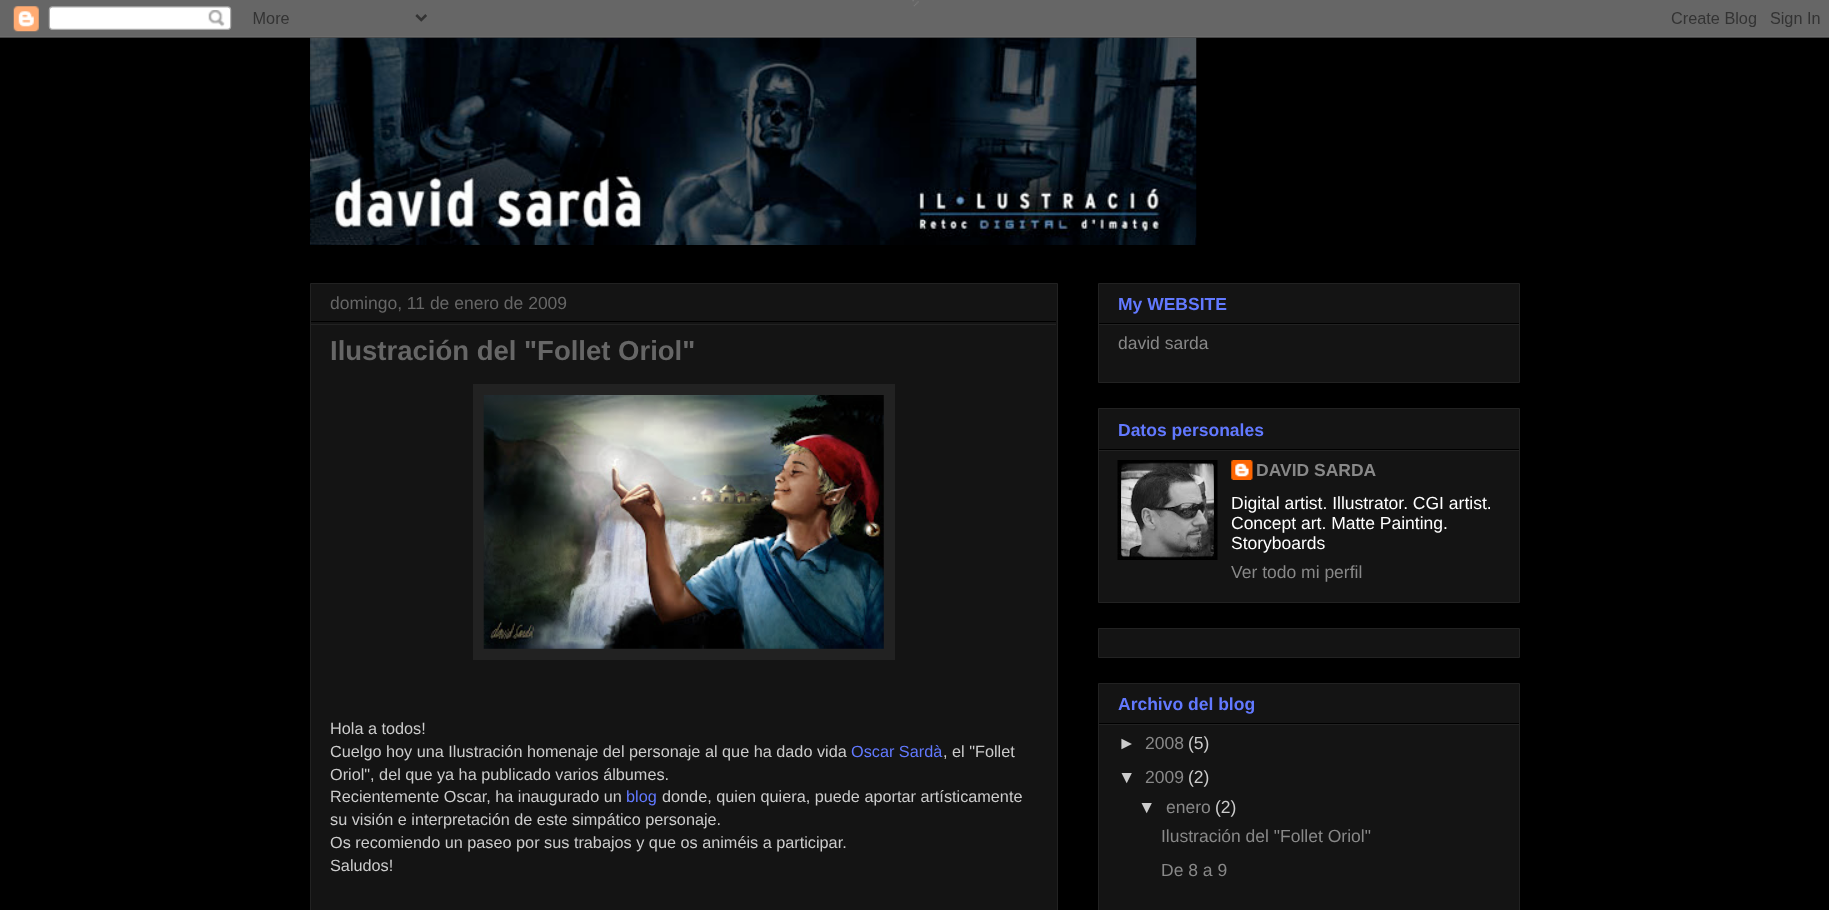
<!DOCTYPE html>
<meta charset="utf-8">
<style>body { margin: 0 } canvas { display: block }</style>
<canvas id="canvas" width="1829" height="910"></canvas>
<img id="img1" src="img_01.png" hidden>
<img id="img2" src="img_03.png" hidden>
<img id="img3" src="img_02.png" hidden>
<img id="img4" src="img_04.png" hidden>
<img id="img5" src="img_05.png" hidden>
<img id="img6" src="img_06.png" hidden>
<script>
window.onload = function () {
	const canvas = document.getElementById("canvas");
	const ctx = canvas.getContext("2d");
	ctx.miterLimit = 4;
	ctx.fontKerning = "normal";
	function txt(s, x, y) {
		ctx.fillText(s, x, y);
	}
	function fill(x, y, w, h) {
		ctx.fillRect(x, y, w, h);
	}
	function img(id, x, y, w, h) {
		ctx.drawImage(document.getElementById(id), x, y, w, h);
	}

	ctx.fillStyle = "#000000";
	fill(0, 0, 1829, 910);
	img("img1", 912, 0, 7, 7);
	img("img2", 310, 37, 887, 208);
	img("img3", 0, 0, 1829, 38);
	ctx.fillStyle = "#141414";
	ctx.beginPath();
	ctx.rect(310.5, 283.5, 747, 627);
	ctx.fill();
	ctx.strokeStyle = "#222222";
	ctx.stroke();
	ctx.fillStyle = "#000000";
	fill(311, 321, 745, 1);
	ctx.fillStyle = "#222222";
	fill(311, 324, 745, 1);
	fill(473, 384, 422, 276);
	img("img4", 483, 395, 401, 254);
	ctx.fillStyle = "#141414";
	ctx.beginPath();
	ctx.rect(1098.5, 283.5, 421, 99);
	ctx.fill();
	ctx.stroke();
	ctx.fillStyle = "#000000";
	fill(1099, 323, 420, 1);
	ctx.fillStyle = "#222222";
	fill(1099, 324, 420, 1);
	ctx.fillStyle = "#141414";
	ctx.beginPath();
	ctx.rect(1098.5, 408.5, 421, 194);
	ctx.fill();
	ctx.stroke();
	ctx.fillStyle = "#000000";
	fill(1099, 449, 420, 1);
	ctx.fillStyle = "#222222";
	fill(1099, 450, 420, 1);
	img("img5", 1117, 460, 101, 100);
	img("img6", 1231, 460, 22, 20);
	ctx.fillStyle = "#141414";
	ctx.beginPath();
	ctx.rect(1098.5, 628.5, 421, 29);
	ctx.fill();
	ctx.stroke();
	ctx.beginPath();
	ctx.rect(1098.5, 683.5, 421, 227);
	ctx.fill();
	ctx.stroke();
	ctx.fillStyle = "#000000";
	fill(1099, 723, 420, 1);
	ctx.fillStyle = "#222222";
	fill(1099, 724, 420, 1);
	ctx.font = "17.5px Liberation Sans";
	ctx.fillStyle = "#666666";
	txt("domingo, 11 de enero de 2009", 330, 309);
	ctx.font = "bold 27.5px Liberation Sans";
	txt("Ilustración del \"Follet Oriol\"", 330, 360);
	ctx.font = "16.25px Liberation Sans";
	ctx.fillStyle = "#CCCCCC";
	txt("Hola a todos!", 330, 734);
	txt("Cuelgo hoy una Ilustración homenaje del personaje al que ha dado vida", 330, 757);
	ctx.fillStyle = "#6279FF";
	txt("Oscar Sardà", 851, 757);
	ctx.fillStyle = "#CCCCCC";
	txt(", el \"Follet", 943, 757);
	txt("Oriol\", del que ya ha publicado varios álbumes.", 330, 780);
	txt("Recientemente Oscar, ha inaugurado un", 330, 802);
	ctx.fillStyle = "#6279FF";
	txt("blog", 626, 802);
	ctx.fillStyle = "#CCCCCC";
	txt("donde, quien quiera, puede aportar artísticamente", 662, 802);
	txt("su visión e interpretación de este simpático personaje.", 330, 825);
	txt("Os recomiendo un paseo por sus trabajos y que os animéis a participar.", 330, 848);
	txt("Saludos!", 330, 871);
	ctx.font = "bold 17.5px Liberation Sans";
	ctx.fillStyle = "#6279FF";
	txt("My WEBSITE", 1118, 310);
	ctx.font = "17.5px Liberation Sans";
	ctx.fillStyle = "#888888";
	txt("david sarda", 1118, 349);
	ctx.font = "bold 17.5px Liberation Sans";
	ctx.fillStyle = "#6279FF";
	txt("Datos personales", 1118, 436);
	ctx.fillStyle = "#888888";
	txt("DAVID SARDA", 1256, 476);
	ctx.font = "17.5px Liberation Sans";
	ctx.fillStyle = "#FFFFFF";
	txt("Digital artist. Illustrator. CGI artist.", 1231, 509);
	txt("Concept art. Matte Painting.", 1231, 529);
	txt("Storyboards", 1231, 549);
	ctx.fillStyle = "#888888";
	txt("Ver todo mi perfil", 1231, 578);
	ctx.font = "bold 17.5px Liberation Sans";
	ctx.fillStyle = "#6279FF";
	txt("Archivo del blog", 1118, 710);
	ctx.font = "17.5px Liberation Sans";
	ctx.fillStyle = "#CCCCCC";
	txt("►", 1118, 749);
	ctx.fillStyle = "#888888";
	txt("2008", 1145, 749);
	ctx.fillStyle = "#CCCCCC";
	txt("(5)", 1188, 749);
	txt("▼", 1118, 783);
	ctx.fillStyle = "#888888";
	txt("2009", 1145, 783);
	ctx.fillStyle = "#CCCCCC";
	txt("(2)", 1188, 783);
	txt("▼", 1138, 813);
	ctx.fillStyle = "#888888";
	txt("enero", 1166, 813);
	ctx.fillStyle = "#CCCCCC";
	txt("(2)", 1215, 813);
	ctx.fillStyle = "#888888";
	txt("Ilustración del \"Follet Oriol\"", 1161, 842);
	txt("De 8 a 9", 1161, 876);
};
</script>
